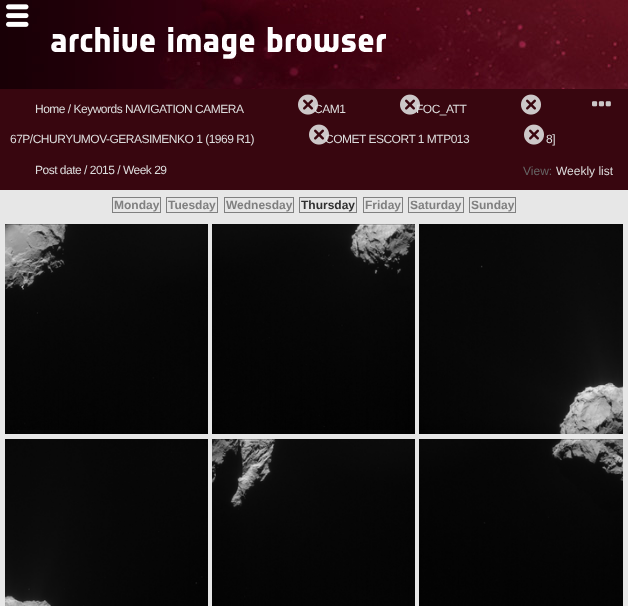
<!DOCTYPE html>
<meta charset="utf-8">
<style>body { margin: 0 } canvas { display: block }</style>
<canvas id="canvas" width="628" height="606"></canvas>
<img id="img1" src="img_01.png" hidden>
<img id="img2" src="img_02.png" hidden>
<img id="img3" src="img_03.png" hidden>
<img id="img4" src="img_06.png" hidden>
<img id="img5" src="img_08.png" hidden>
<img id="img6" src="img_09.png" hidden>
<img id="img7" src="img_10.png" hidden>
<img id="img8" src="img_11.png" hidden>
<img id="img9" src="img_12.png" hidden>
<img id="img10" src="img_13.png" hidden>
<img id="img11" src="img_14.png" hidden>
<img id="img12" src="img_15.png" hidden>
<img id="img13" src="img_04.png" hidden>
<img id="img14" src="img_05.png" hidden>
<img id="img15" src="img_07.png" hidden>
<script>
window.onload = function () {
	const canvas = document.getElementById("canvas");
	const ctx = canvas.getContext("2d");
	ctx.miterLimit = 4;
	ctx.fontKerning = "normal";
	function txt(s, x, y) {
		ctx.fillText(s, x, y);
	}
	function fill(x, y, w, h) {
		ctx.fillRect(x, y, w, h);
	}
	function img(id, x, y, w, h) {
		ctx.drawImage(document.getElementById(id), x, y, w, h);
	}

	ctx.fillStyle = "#E7E7E7";
	fill(0, 0, 628, 606);
	img("img1", 0, 0, 628, 89);
	img("img2", 51, 27, 335, 32);
	img("img3", 6, 4, 23, 23);
	ctx.fillStyle = "#38060F";
	fill(0, 89, 628, 101);
	img("img4", 521, 94, 20, 21);
	img("img5", 524, 124, 20, 21);
	img("img6", 592, 101, 19, 6);
	ctx.strokeStyle = "#808080";
	ctx.strokeRect(112.5, 197.5, 48, 15);
	ctx.strokeRect(166.5, 197.5, 51, 15);
	ctx.strokeRect(224.5, 197.5, 69, 15);
	ctx.strokeRect(299.5, 197.5, 57, 15);
	ctx.strokeRect(363.5, 197.5, 39, 15);
	ctx.strokeRect(408.5, 197.5, 55, 15);
	ctx.strokeRect(469.5, 197.5, 46, 15);
	img("img7", 5, 224, 203, 210);
	img("img8", 212, 224, 203, 210);
	img("img9", 419, 224, 204, 210);
	img("img10", 5, 439, 203, 167);
	img("img11", 212, 439, 203, 167);
	img("img12", 419, 439, 204, 167);
	ctx.letterSpacing = "-0.5px";
	ctx.font = "12px Liberation Sans";
	ctx.fillStyle = "#DDDDDD";
	txt("Home / Keywords NAVIGATION CAMERA", 35, 113);
	txt("CAM1", 314, 113);
	img("img13", 298, 94, 20, 21);
	txt("FOC_ATT", 416, 113);
	img("img14", 400, 94, 20, 21);
	txt("67P/CHURYUMOV-GERASIMENKO 1 (1969 R1)", 10, 143);
	txt("COMET ESCORT 1 MTP013", 325, 143);
	img("img15", 309, 124, 20, 21);
	txt("8]", 546, 143);
	txt("Post date / 2015 / Week 29", 35, 174);
	ctx.letterSpacing = "0px";
	ctx.fillStyle = "#666666";
	txt("View:", 523, 175);
	ctx.fillStyle = "#DDDDDD";
	txt("Weekly list", 556, 175);
	ctx.font = "bold 12px Liberation Sans";
	ctx.fillStyle = "#808080";
	txt("Monday", 114, 209);
	txt("Tuesday", 168, 209);
	txt("Wednesday", 226, 209);
	ctx.fillStyle = "#303030";
	txt("Thursday", 301, 209);
	ctx.fillStyle = "#808080";
	txt("Friday", 365, 209);
	txt("Saturday", 410, 209);
	txt("Sunday", 471, 209);
};
</script>
